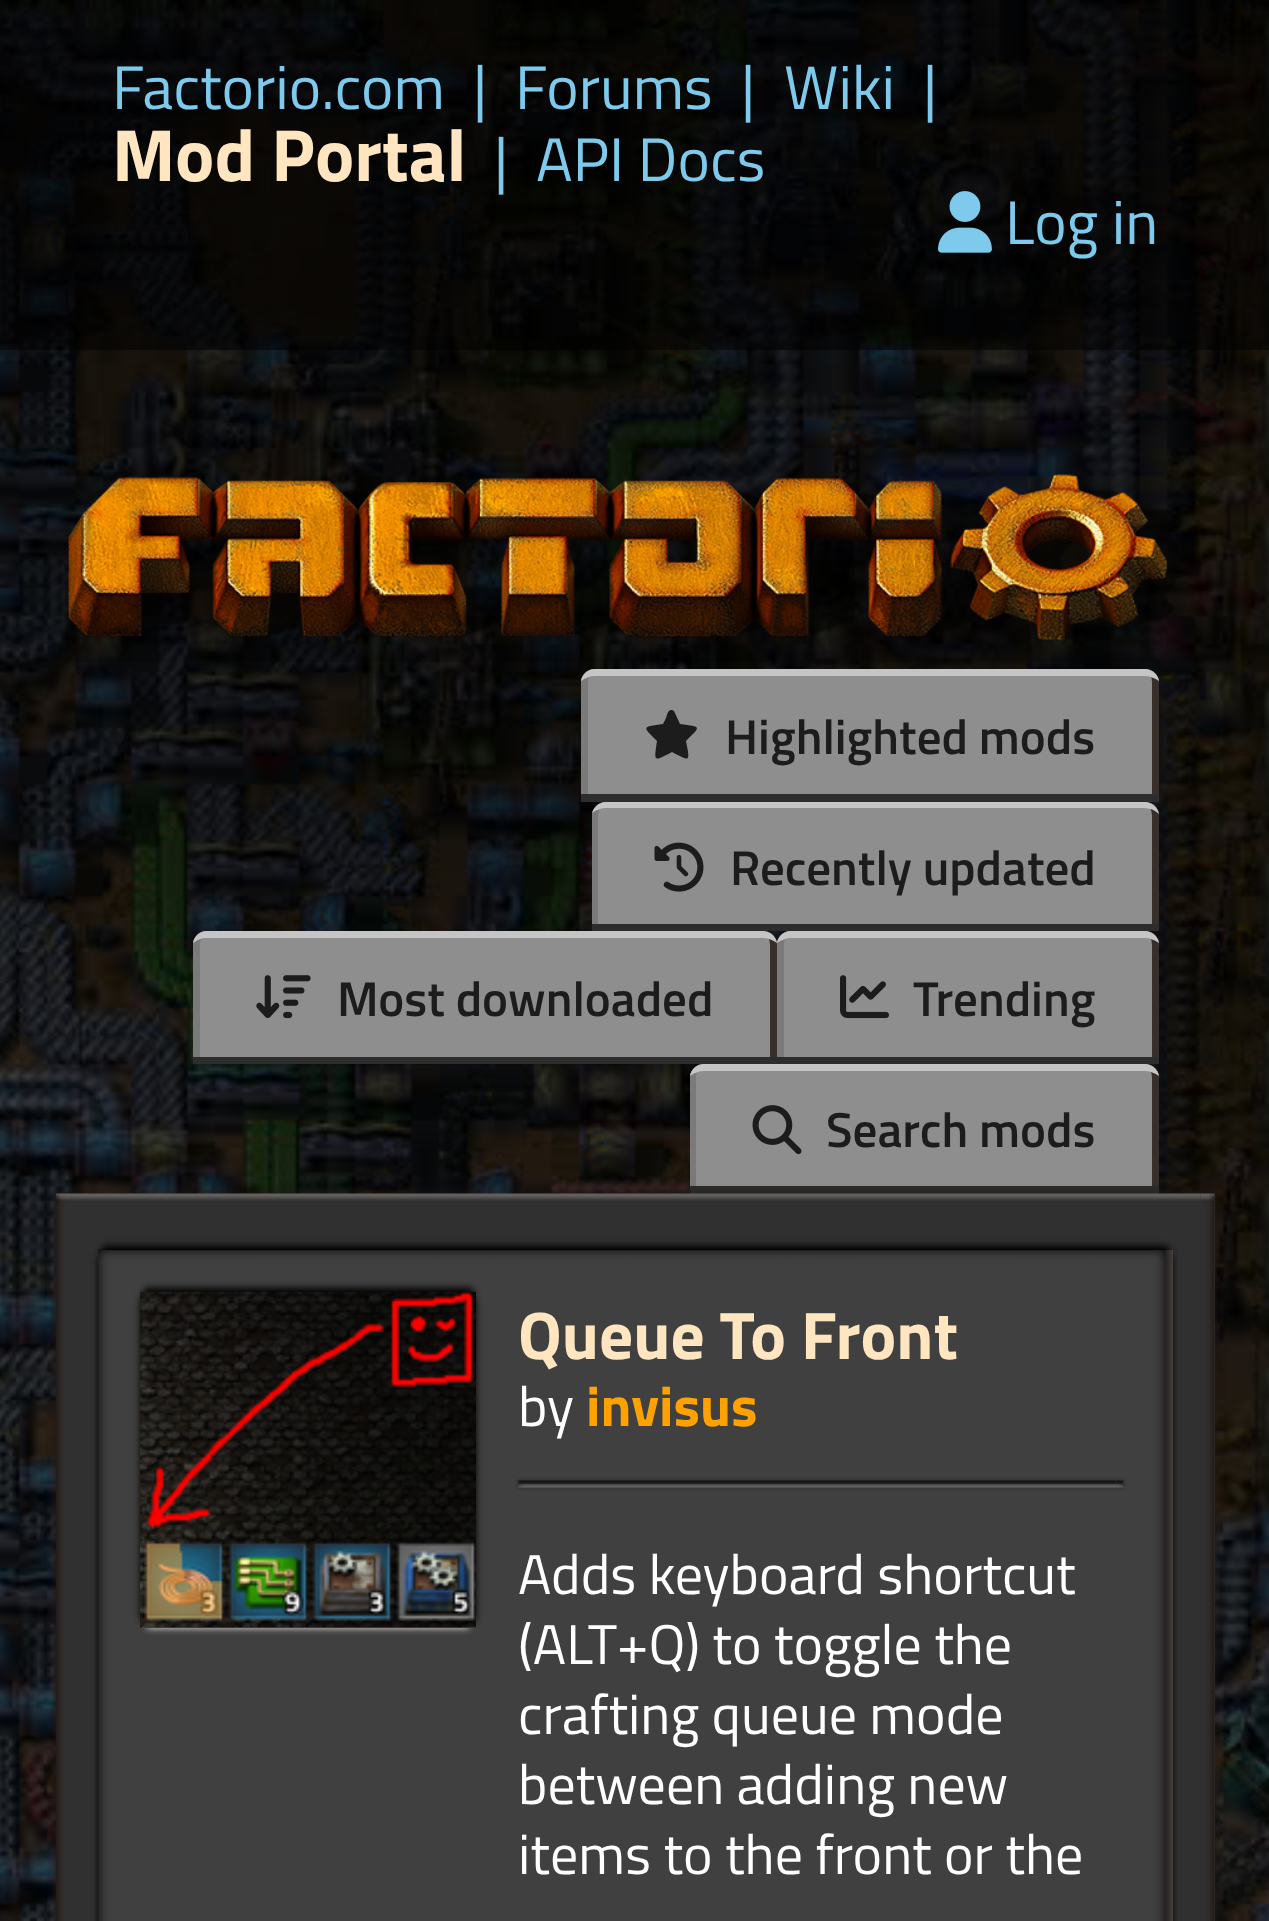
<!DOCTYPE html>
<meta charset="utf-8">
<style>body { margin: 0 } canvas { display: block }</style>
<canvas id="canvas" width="1269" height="1921"></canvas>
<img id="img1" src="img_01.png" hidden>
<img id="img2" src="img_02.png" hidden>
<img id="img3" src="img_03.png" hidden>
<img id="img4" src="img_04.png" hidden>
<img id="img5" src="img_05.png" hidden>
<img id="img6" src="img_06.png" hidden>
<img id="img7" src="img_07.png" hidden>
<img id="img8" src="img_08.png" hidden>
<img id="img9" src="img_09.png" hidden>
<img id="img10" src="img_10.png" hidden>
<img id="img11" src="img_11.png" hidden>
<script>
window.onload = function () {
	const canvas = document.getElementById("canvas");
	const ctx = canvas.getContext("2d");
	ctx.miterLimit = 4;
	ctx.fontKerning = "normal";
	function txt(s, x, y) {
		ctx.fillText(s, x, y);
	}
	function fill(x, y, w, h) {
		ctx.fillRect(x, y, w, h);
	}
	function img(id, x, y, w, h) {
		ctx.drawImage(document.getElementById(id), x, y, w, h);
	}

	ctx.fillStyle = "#FFFFFF";
	fill(0, 0, 1269, 1921);
	img("img1", 0, 0, 1269, 1921);
	ctx.fillStyle = "rgba(0, 0, 0, 0.5)";
	fill(0, 0, 1269, 350);
	img("img2", 938, 191, 54, 62);
	img("img3", 65, 474, 1137, 188);
	ctx.fillStyle = "#8E8E8E";
	ctx.beginPath();
	ctx.roundRect(581, 669, 578, 133, [14, 14, 0, 0]);
	ctx.fill();
	ctx.fillStyle = "#372F2A";
	ctx.beginPath();
	ctx.moveTo(1152, 802);
	ctx.lineTo(1159, 802);
	ctx.lineTo(1159, 683);
	ctx.bezierCurveTo(1159, 676, 1154, 670, 1147, 669);
	ctx.bezierCurveTo(1150, 673, 1152, 677, 1152, 682);
	ctx.closePath();
	ctx.fill();
	ctx.fillStyle = "#7A7A7A";
	ctx.beginPath();
	ctx.moveTo(593, 669);
	ctx.bezierCurveTo(586, 670, 581, 676, 581, 683);
	ctx.lineTo(581, 802);
	ctx.lineTo(588, 802);
	ctx.lineTo(588, 682);
	ctx.bezierCurveTo(588, 677, 590, 673, 593, 669);
	ctx.closePath();
	ctx.fill();
	ctx.fillStyle = "#2D2D2D";
	fill(581, 794, 578, 8);
	ctx.fillStyle = "#C5C5C5";
	ctx.beginPath();
	ctx.moveTo(595, 676);
	ctx.lineTo(1144, 676);
	ctx.bezierCurveTo(1150, 676, 1155, 678, 1159, 681);
	ctx.bezierCurveTo(1158, 674, 1152, 669, 1145, 669);
	ctx.lineTo(595, 669);
	ctx.bezierCurveTo(588, 669, 582, 674, 581, 681);
	ctx.bezierCurveTo(585, 678, 590, 676, 595, 676);
	ctx.closePath();
	ctx.fill();
	ctx.fillStyle = "#1D1C1D";
	ctx.beginPath();
	ctx.moveTo(674, 711);
	ctx.lineTo(672, 710);
	ctx.bezierCurveTo(668, 709, 667, 715, 666, 718);
	ctx.lineTo(663, 724);
	ctx.bezierCurveTo(642, 727, 642, 726, 657, 741);
	ctx.bezierCurveTo(654, 762, 653, 762, 672, 752);
	ctx.bezierCurveTo(691, 762, 690, 762, 686, 741);
	ctx.bezierCurveTo(701, 726, 702, 727, 680, 724);
	ctx.closePath();
	ctx.fill();
	ctx.fillStyle = "#8E8E8E";
	ctx.beginPath();
	ctx.roundRect(592, 802, 567, 129, [14, 14, 0, 0]);
	ctx.fill();
	ctx.fillStyle = "#372F2A";
	ctx.beginPath();
	ctx.moveTo(1152, 931);
	ctx.lineTo(1159, 931);
	ctx.lineTo(1159, 816);
	ctx.bezierCurveTo(1159, 809, 1154, 803, 1147, 802);
	ctx.bezierCurveTo(1150, 806, 1152, 811, 1152, 816);
	ctx.closePath();
	ctx.fill();
	ctx.fillStyle = "#7A7A7A";
	ctx.beginPath();
	ctx.moveTo(603, 802);
	ctx.bezierCurveTo(597, 804, 592, 809, 592, 816);
	ctx.lineTo(592, 931);
	ctx.lineTo(598, 931);
	ctx.lineTo(598, 816);
	ctx.bezierCurveTo(598, 811, 600, 806, 603, 802);
	ctx.closePath();
	ctx.fill();
	ctx.fillStyle = "#2D2D2D";
	fill(592, 924, 567, 7);
	ctx.fillStyle = "#C5C5C5";
	ctx.beginPath();
	ctx.moveTo(606, 808);
	ctx.lineTo(1144, 808);
	ctx.bezierCurveTo(1150, 808, 1155, 810, 1159, 814);
	ctx.bezierCurveTo(1158, 807, 1152, 802, 1145, 802);
	ctx.lineTo(606, 802);
	ctx.bezierCurveTo(599, 802, 594, 807, 592, 813);
	ctx.bezierCurveTo(596, 810, 601, 808, 606, 808);
	ctx.closePath();
	ctx.fill();
	img("img4", 654, 842, 50, 50);
	ctx.fillStyle = "#8E8E8E";
	ctx.beginPath();
	ctx.roundRect(193, 931, 584, 133, [14, 14, 0, 0]);
	ctx.fill();
	ctx.fillStyle = "#372F2A";
	ctx.beginPath();
	ctx.moveTo(770, 1064);
	ctx.lineTo(777, 1064);
	ctx.lineTo(777, 945);
	ctx.bezierCurveTo(777, 938, 772, 932, 765, 931);
	ctx.bezierCurveTo(768, 935, 770, 940, 770, 945);
	ctx.closePath();
	ctx.fill();
	ctx.fillStyle = "#7A7A7A";
	ctx.beginPath();
	ctx.moveTo(205, 931);
	ctx.bezierCurveTo(198, 932, 193, 938, 193, 945);
	ctx.lineTo(193, 1064);
	ctx.lineTo(200, 1064);
	ctx.lineTo(200, 945);
	ctx.bezierCurveTo(200, 940, 202, 935, 205, 931);
	ctx.closePath();
	ctx.fill();
	ctx.fillStyle = "#2D2D2D";
	fill(193, 1057, 584, 7);
	ctx.fillStyle = "#C5C5C5";
	ctx.beginPath();
	ctx.moveTo(206, 938);
	ctx.lineTo(763, 938);
	ctx.bezierCurveTo(768, 938, 773, 940, 777, 943);
	ctx.bezierCurveTo(776, 936, 770, 931, 763, 931);
	ctx.lineTo(207, 931);
	ctx.bezierCurveTo(200, 931, 194, 936, 193, 943);
	ctx.bezierCurveTo(197, 940, 201, 938, 206, 938);
	ctx.closePath();
	ctx.fill();
	img("img5", 256, 975, 55, 44);
	ctx.fillStyle = "#8E8E8E";
	ctx.beginPath();
	ctx.roundRect(777, 931, 382, 133, [14, 14, 0, 0]);
	ctx.fill();
	ctx.fillStyle = "#372F2A";
	ctx.beginPath();
	ctx.moveTo(1152, 1064);
	ctx.lineTo(1159, 1064);
	ctx.lineTo(1159, 945);
	ctx.bezierCurveTo(1159, 938, 1154, 932, 1147, 931);
	ctx.bezierCurveTo(1150, 935, 1152, 940, 1152, 945);
	ctx.closePath();
	ctx.fill();
	ctx.fillStyle = "#7A7A7A";
	ctx.beginPath();
	ctx.moveTo(789, 931);
	ctx.bezierCurveTo(782, 932, 777, 938, 777, 945);
	ctx.lineTo(777, 1064);
	ctx.lineTo(784, 1064);
	ctx.lineTo(784, 945);
	ctx.bezierCurveTo(784, 940, 786, 935, 789, 931);
	ctx.closePath();
	ctx.fill();
	ctx.fillStyle = "#2D2D2D";
	fill(777, 1057, 382, 7);
	ctx.fillStyle = "#C5C5C5";
	ctx.beginPath();
	ctx.moveTo(791, 938);
	ctx.lineTo(1144, 938);
	ctx.bezierCurveTo(1150, 938, 1155, 940, 1159, 943);
	ctx.bezierCurveTo(1158, 936, 1152, 931, 1145, 931);
	ctx.lineTo(791, 931);
	ctx.bezierCurveTo(784, 931, 778, 936, 777, 943);
	ctx.bezierCurveTo(781, 940, 786, 938, 791, 938);
	ctx.closePath();
	ctx.fill();
	img("img6", 840, 975, 49, 44);
	ctx.fillStyle = "#8E8E8E";
	ctx.beginPath();
	ctx.roundRect(690, 1064, 469, 130, [14, 14, 0, 0]);
	ctx.fill();
	ctx.fillStyle = "#372F2A";
	ctx.beginPath();
	ctx.moveTo(1152, 1194);
	ctx.lineTo(1159, 1194);
	ctx.lineTo(1159, 1078);
	ctx.bezierCurveTo(1159, 1071, 1154, 1065, 1147, 1064);
	ctx.bezierCurveTo(1150, 1068, 1152, 1073, 1152, 1078);
	ctx.closePath();
	ctx.fill();
	ctx.fillStyle = "#7A7A7A";
	ctx.beginPath();
	ctx.moveTo(701, 1064);
	ctx.bezierCurveTo(695, 1066, 690, 1071, 690, 1078);
	ctx.lineTo(690, 1194);
	ctx.lineTo(696, 1194);
	ctx.lineTo(696, 1078);
	ctx.bezierCurveTo(696, 1073, 698, 1068, 701, 1064);
	ctx.closePath();
	ctx.fill();
	ctx.fillStyle = "#2D2D2D";
	fill(690, 1186, 469, 8);
	ctx.fillStyle = "#C5C5C5";
	ctx.beginPath();
	ctx.moveTo(704, 1071);
	ctx.lineTo(1144, 1071);
	ctx.bezierCurveTo(1150, 1071, 1155, 1073, 1159, 1076);
	ctx.bezierCurveTo(1158, 1069, 1152, 1064, 1145, 1064);
	ctx.lineTo(704, 1064);
	ctx.bezierCurveTo(697, 1064, 691, 1069, 690, 1076);
	ctx.bezierCurveTo(694, 1073, 699, 1071, 704, 1071);
	ctx.closePath();
	ctx.fill();
	img("img7", 752, 1105, 50, 50);
	ctx.fillStyle = "#201815";
	ctx.filter = "blur(5px)";
	ctx.beginPath();
	ctx.rect(56, 1194, 1159, 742);
	ctx.fill();
	ctx.filter = "none";
	ctx.fillStyle = "#313031";
	fill(56, 1194, 1159, 727);
	img("img8", 56, 1193, 1159, 728);
	ctx.fillStyle = "#0F0D0C";
	ctx.filter = "blur(3.5px)";
	ctx.beginPath();
	ctx.rect(112, 1257, 1061, 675);
	ctx.fill();
	ctx.filter = "none";
	ctx.filter = "blur(3.5px)";
	ctx.beginPath();
	ctx.rect(98, 1257, 1061, 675);
	ctx.fill();
	ctx.filter = "none";
	ctx.fillStyle = "#000000";
	ctx.filter = "blur(3.5px)";
	ctx.beginPath();
	ctx.rect(102, 1246, 1067, 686);
	ctx.fill();
	ctx.filter = "none";
	ctx.fillStyle = "#414040";
	fill(98, 1250, 1075, 671);
	img("img9", 98, 1249, 1074, 672);
	ctx.fillStyle = "#EBE6E4";
	ctx.filter = "blur(3.5px)";
	ctx.beginPath();
	ctx.rect(147, 1306, 322, 322);
	ctx.fill();
	ctx.filter = "none";
	ctx.fillStyle = "#0F0D0C";
	ctx.filter = "blur(3.5px)";
	ctx.beginPath();
	ctx.rect(154, 1299, 322, 322);
	ctx.fill();
	ctx.filter = "none";
	ctx.filter = "blur(3.5px)";
	ctx.beginPath();
	ctx.rect(140, 1299, 322, 322);
	ctx.fill();
	ctx.filter = "none";
	ctx.fillStyle = "#000000";
	ctx.filter = "blur(3.5px)";
	ctx.beginPath();
	ctx.rect(144, 1288, 329, 329);
	ctx.fill();
	ctx.filter = "none";
	ctx.fillStyle = "#414040";
	fill(140, 1627, 336, 1);
	img("img10", 140, 1291, 336, 337);
	img("img11", 515, 1477, 611, 14);
	ctx.font = "61.5px Titillium Web";
	ctx.fillStyle = "#7DCAED";
	txt("Factorio.com", 112, 109);
	txt("|", 473, 109);
	txt("Forums", 515, 109);
	txt("|", 741, 109);
	txt("Wiki", 784, 109);
	txt("|", 923, 109);
	ctx.font = "bold 74px Titillium Web";
	ctx.fillStyle = "#FFE6C0";
	txt("Mod Portal", 112, 181);
	ctx.font = "61.5px Titillium Web";
	ctx.fillStyle = "#7DCAED";
	txt("|", 494, 181);
	txt("API Docs", 536, 181);
	txt("Log in", 1005, 244);
	ctx.font = "600 49px Titillium Web";
	ctx.fillStyle = "#1D1C1D";
	txt("Highlighted mods", 725, 754);
	txt("Recently updated", 730, 885);
	txt("Most downloaded", 337, 1016);
	txt("Trending", 913, 1016);
	txt("Search mods", 826, 1147);
	ctx.font = "bold 67.25px Titillium Web";
	ctx.fillStyle = "#FFE6C0";
	txt("Queue To Front", 518, 1359);
	ctx.font = "56px Titillium Web";
	ctx.fillStyle = "#FFFFFF";
	txt("by", 518, 1426);
	ctx.font = "bold 56px Titillium Web";
	ctx.fillStyle = "#FFA200";
	txt("invisus", 586, 1426);
	ctx.font = "56px Titillium Web";
	ctx.fillStyle = "#FFFFFF";
	txt("Adds keyboard shortcut", 518, 1594);
	txt("(ALT+Q) to toggle the", 518, 1664);
	txt("crafting queue mode", 518, 1734);
	txt("between adding new", 518, 1804);
	txt("items to the front or the", 518, 1874);
};
</script>
